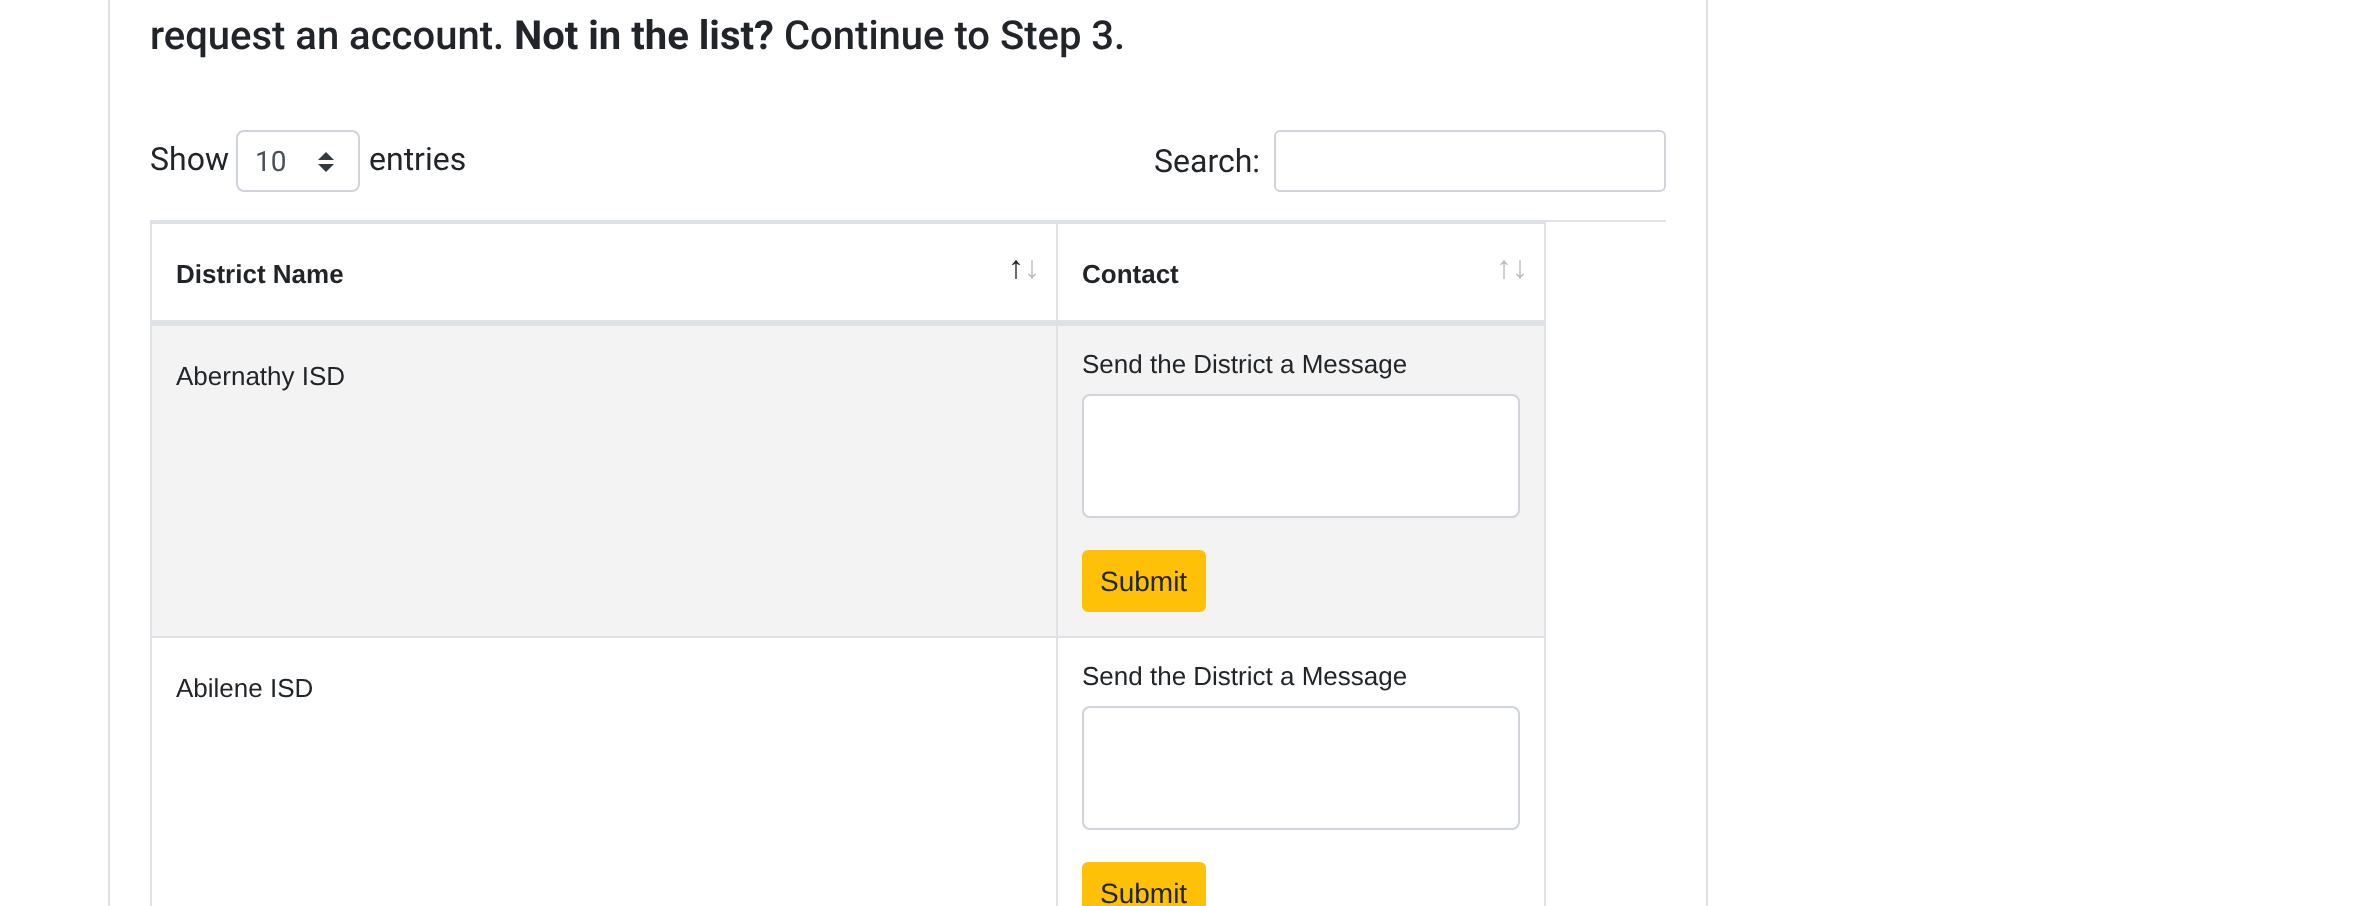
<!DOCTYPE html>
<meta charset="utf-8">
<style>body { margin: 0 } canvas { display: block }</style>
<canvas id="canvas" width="2366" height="906"></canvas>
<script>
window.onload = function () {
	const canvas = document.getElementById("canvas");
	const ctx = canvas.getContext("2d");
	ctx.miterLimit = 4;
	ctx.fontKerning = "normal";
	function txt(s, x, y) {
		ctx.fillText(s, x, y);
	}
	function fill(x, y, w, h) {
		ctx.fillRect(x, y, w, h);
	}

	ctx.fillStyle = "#FFFFFF";
	fill(0, 0, 2366, 906);
	ctx.strokeStyle = "#DFDFDF";
	ctx.lineWidth = 2;
	ctx.strokeRect(109, -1, 1598, 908);
	ctx.fillStyle = "#343A40";
	ctx.beginPath();
	ctx.moveTo(326, 152);
	ctx.lineTo(318, 160);
	ctx.lineTo(334, 160);
	ctx.closePath();
	ctx.moveTo(326, 172);
	ctx.lineTo(318, 164);
	ctx.lineTo(334, 164);
	ctx.closePath();
	ctx.fill();
	ctx.beginPath();
	ctx.roundRect(237, 131, 122, 60, 7);
	ctx.strokeStyle = "#CED4DA";
	ctx.stroke();
	ctx.beginPath();
	ctx.roundRect(1275, 131, 390, 60, 5);
	ctx.stroke();
	ctx.fillStyle = "#DEE2E6";
	fill(150, 220, 1516, 2);
	fill(150, 220, 2, 686);
	fill(152, 222, 1394, 2);
	fill(1056, 222, 2, 102);
	fill(152, 320, 906, 4);
	fill(1544, 222, 2, 102);
	fill(1058, 320, 488, 4);
	ctx.fillStyle = "#F3F3F3";
	fill(152, 326, 1392, 310);
	ctx.fillStyle = "#DEE2E6";
	fill(152, 324, 1394, 2);
	fill(1056, 324, 2, 312);
	fill(1544, 324, 2, 312);
	ctx.fillStyle = "#FFFFFF";
	ctx.beginPath();
	ctx.roundRect(1083, 395, 436, 122, 7);
	ctx.fill();
	ctx.stroke();
	ctx.fillStyle = "#FFC107";
	ctx.beginPath();
	ctx.roundRect(1083, 551, 122, 60, 5);
	ctx.fill();
	ctx.strokeStyle = "#FFC107";
	ctx.stroke();
	ctx.fillStyle = "#DEE2E6";
	fill(152, 636, 1394, 2);
	fill(1056, 636, 2, 270);
	fill(1544, 636, 2, 270);
	ctx.beginPath();
	ctx.roundRect(1083, 707, 436, 122, 7);
	ctx.strokeStyle = "#CED4DA";
	ctx.stroke();
	ctx.fillStyle = "#FFC107";
	ctx.beginPath();
	ctx.roundRect(1083, 863, 122, 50, 5);
	ctx.fill();
	ctx.strokeStyle = "#FFC107";
	ctx.stroke();
	ctx.font = "500 40px Roboto";
	ctx.fillStyle = "#212529";
	txt("request an account.", 150, 49);
	ctx.font = "bold 40px Roboto";
	txt("Not in the list?", 514, 49);
	ctx.font = "500 40px Roboto";
	txt("Continue to Step 3.", 784, 49);
	ctx.font = "32px Roboto";
	txt("Show", 150, 170);
	ctx.font = "28px Roboto";
	ctx.fillStyle = "#495057";
	txt("10", 255, 171);
	ctx.font = "32px Roboto";
	ctx.fillStyle = "#212529";
	txt("entries", 369, 170);
	txt("Search:", 1154, 172);
	ctx.font = "bold 26px Liberation Sans";
	txt("District Name", 176, 283);
	ctx.font = "bold 32px Liberation Sans";
	txt("↑", 1008, 278);
	ctx.fillStyle = "#BCBEBF";
	txt("↓", 1024, 278);
	ctx.font = "bold 26px Liberation Sans";
	ctx.fillStyle = "#212529";
	txt("Contact", 1082, 283);
	ctx.font = "bold 32px Liberation Sans";
	ctx.fillStyle = "#BCBEBF";
	txt("↑↓", 1496, 278);
	ctx.font = "26px Liberation Sans";
	ctx.fillStyle = "#212529";
	txt("Abernathy ISD", 176, 385);
	txt("Send the District a Message", 1082, 373);
	ctx.font = "28px Liberation Sans";
	txt("Submit", 1100, 591);
	ctx.font = "26px Liberation Sans";
	txt("Abilene ISD", 176, 697);
	txt("Send the District a Message", 1082, 685);
	ctx.font = "28px Liberation Sans";
	txt("Submit", 1100, 903);
};
</script>
